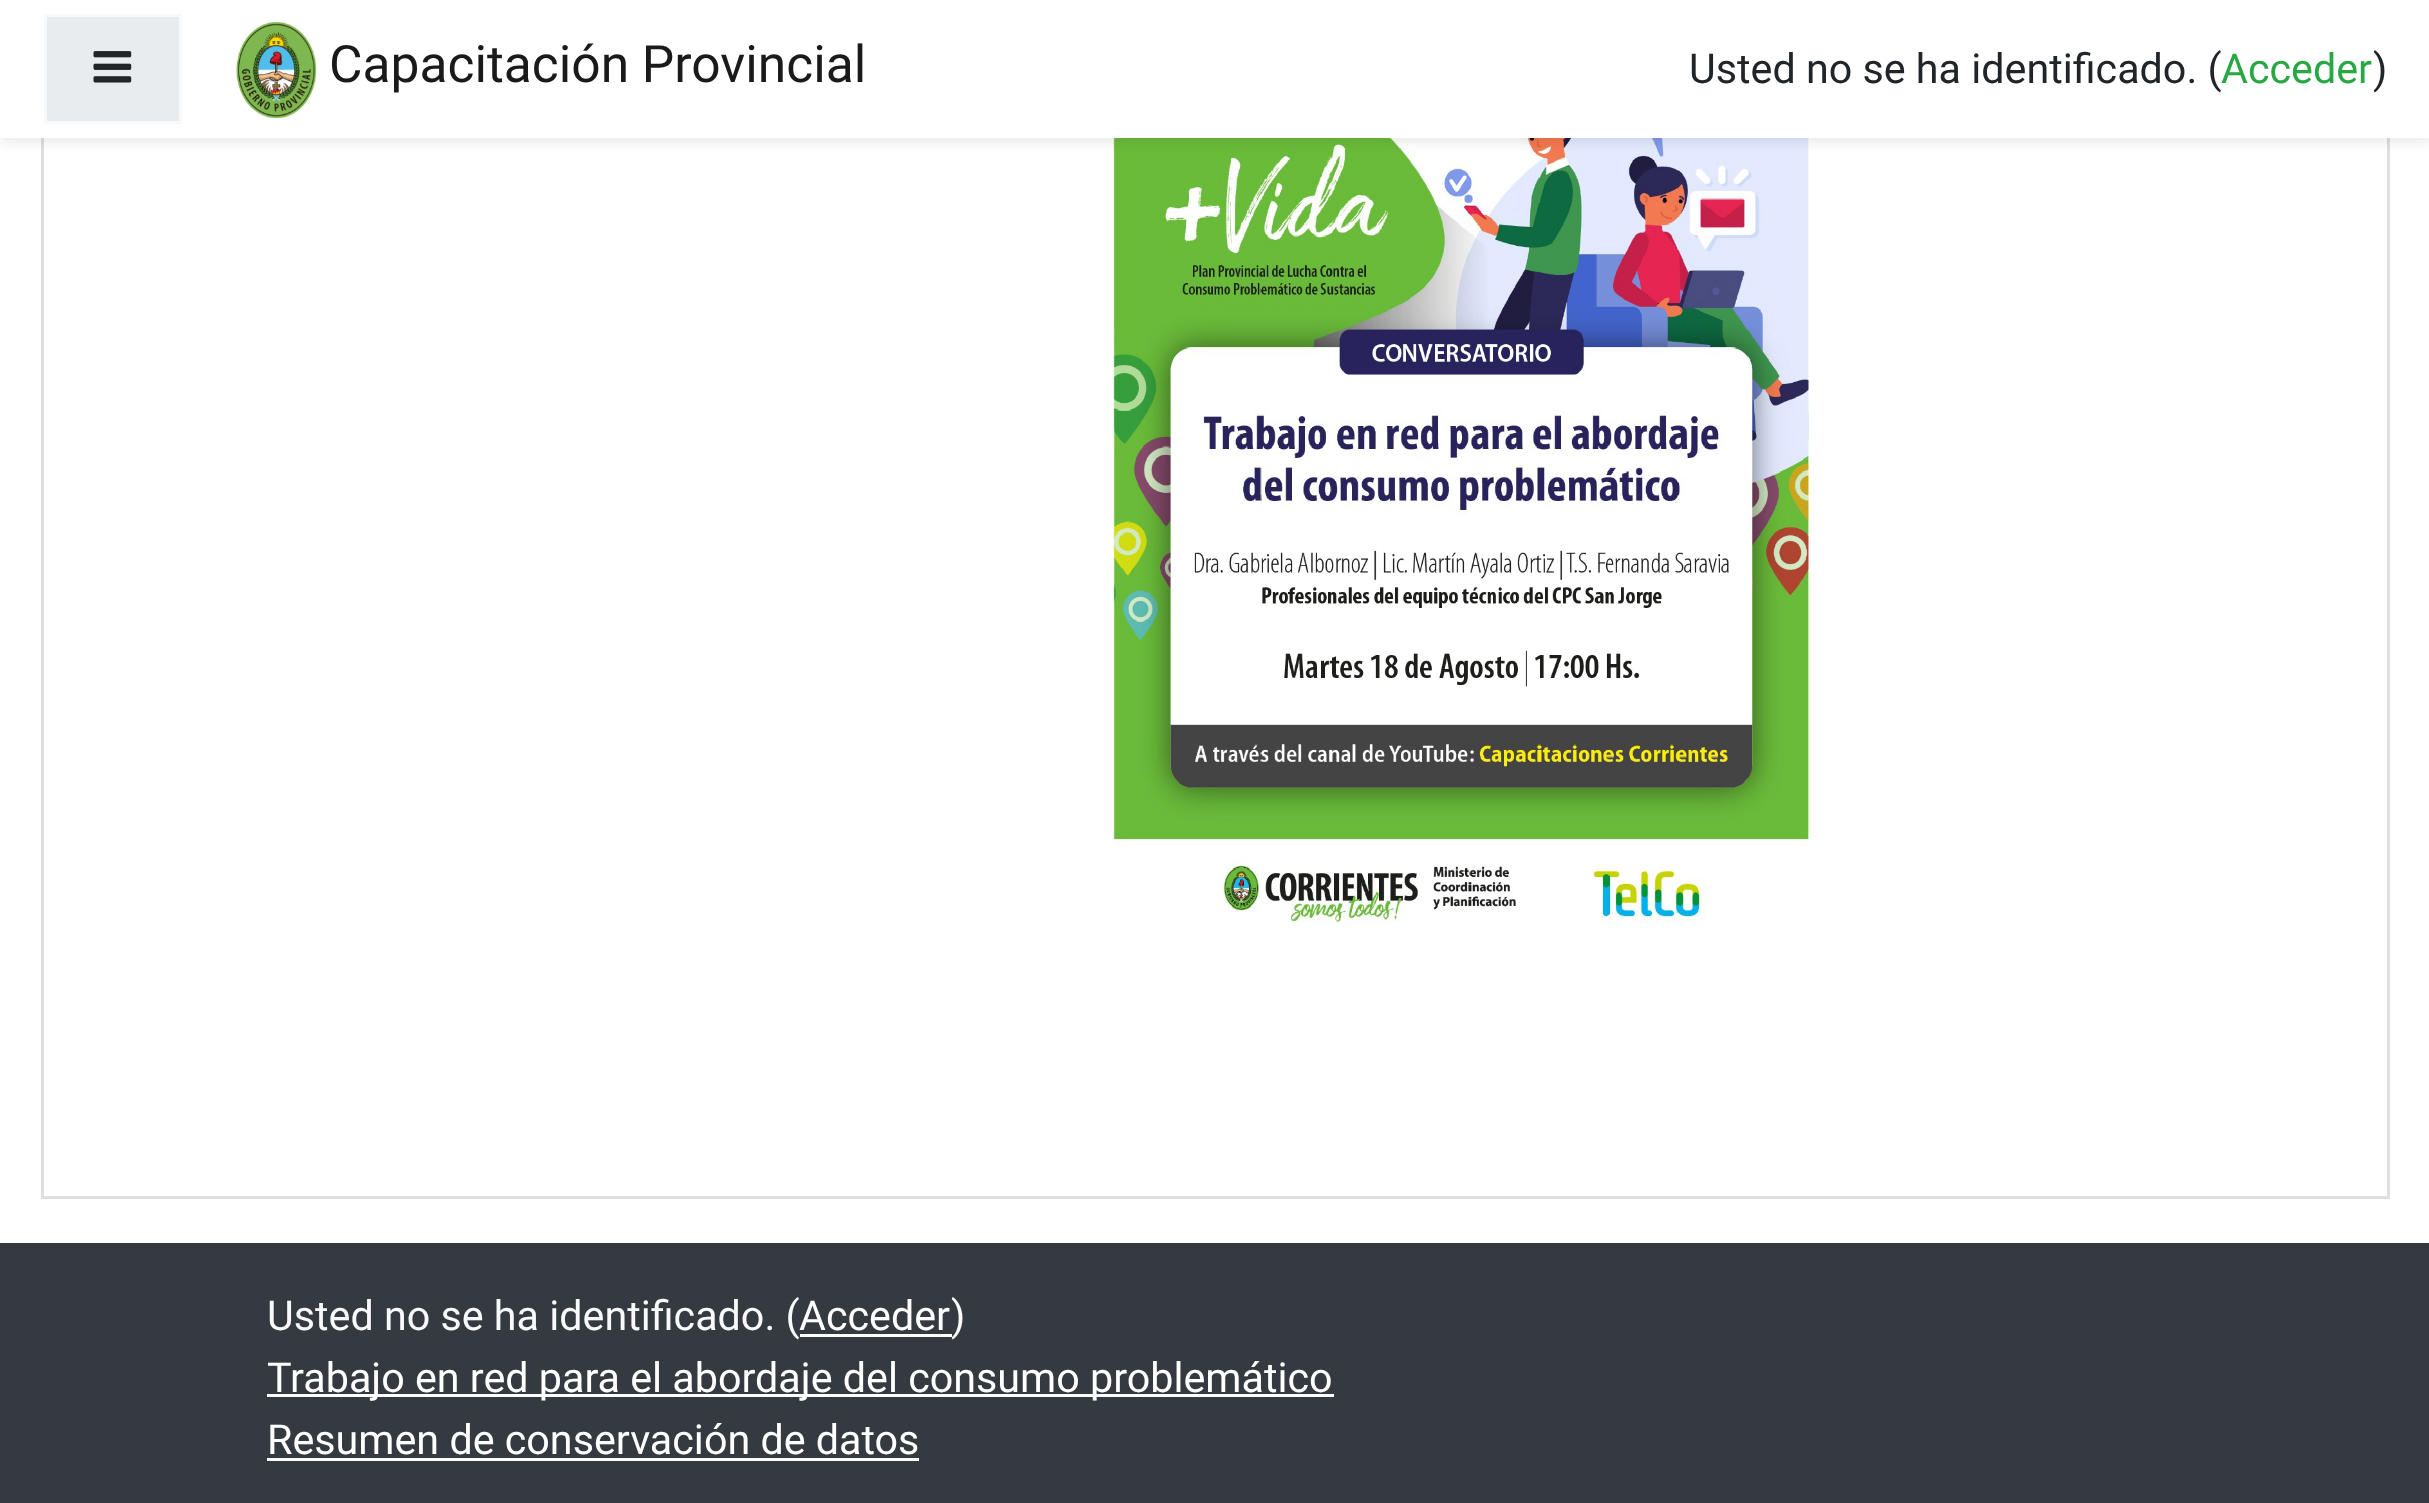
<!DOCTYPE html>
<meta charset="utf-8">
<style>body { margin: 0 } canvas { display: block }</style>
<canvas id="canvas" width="2429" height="1503"></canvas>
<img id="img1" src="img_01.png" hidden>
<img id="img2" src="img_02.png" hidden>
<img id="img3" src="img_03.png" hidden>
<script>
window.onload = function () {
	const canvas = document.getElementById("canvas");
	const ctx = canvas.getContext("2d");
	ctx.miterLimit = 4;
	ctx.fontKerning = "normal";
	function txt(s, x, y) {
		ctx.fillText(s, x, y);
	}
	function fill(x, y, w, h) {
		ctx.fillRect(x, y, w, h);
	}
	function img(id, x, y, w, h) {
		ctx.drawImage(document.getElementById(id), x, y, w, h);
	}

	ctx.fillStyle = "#FFFFFF";
	fill(0, 0, 2429, 1503);
	ctx.strokeStyle = "#DFDFDF";
	ctx.lineWidth = 3;
	ctx.strokeRect(42.5, -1.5, 2346, 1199);
	img("img1", 1113, 138, 696, 786);
	ctx.fillStyle = "rgba(0, 0, 0, 0.08)";
	ctx.filter = "blur(5.5px)";
	ctx.beginPath();
	ctx.rect(0, 6, 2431, 137);
	ctx.fill();
	ctx.filter = "none";
	ctx.fillStyle = "#FFFFFF";
	fill(0, 0, 2429, 138);
	ctx.fillStyle = "#E9ECEF";
	ctx.beginPath();
	ctx.rect(45.5, 15.5, 135, 107);
	ctx.fill();
	ctx.strokeStyle = "#F8F9FA";
	ctx.stroke();
	img("img2", 93, 51, 39, 32);
	img("img3", 236, 22, 81, 97);
	ctx.fillStyle = "#343A40";
	fill(0, 1243, 2429, 260);
	ctx.fillStyle = "#FFFFFF";
	fill(800, 1334, 152, 3);
	fill(267, 1394, 1067, 3);
	fill(267, 1458, 652, 3);
	ctx.font = "51.5px Roboto";
	ctx.fillStyle = "#1A1A1A";
	txt("Capacitación Provincial", 329, 82);
	ctx.font = "41.25px Roboto";
	ctx.fillStyle = "#212529";
	txt("Usted no se ha identificado. (", 1689, 83);
	ctx.fillStyle = "#28A745";
	txt("Acceder", 2221, 83);
	ctx.fillStyle = "#212529";
	txt(")", 2373, 83);
	ctx.fillStyle = "#F8F9FA";
	txt("Usted no se ha identificado. (", 267, 1330);
	ctx.fillStyle = "#FFFFFF";
	txt("Acceder", 799, 1330);
	ctx.fillStyle = "#F8F9FA";
	txt(")", 951, 1330);
	ctx.fillStyle = "#FFFFFF";
	txt("Trabajo en red para el abordaje del consumo problemático", 267, 1392);
	txt("Resumen de conservación de datos", 267, 1454);
};
</script>
